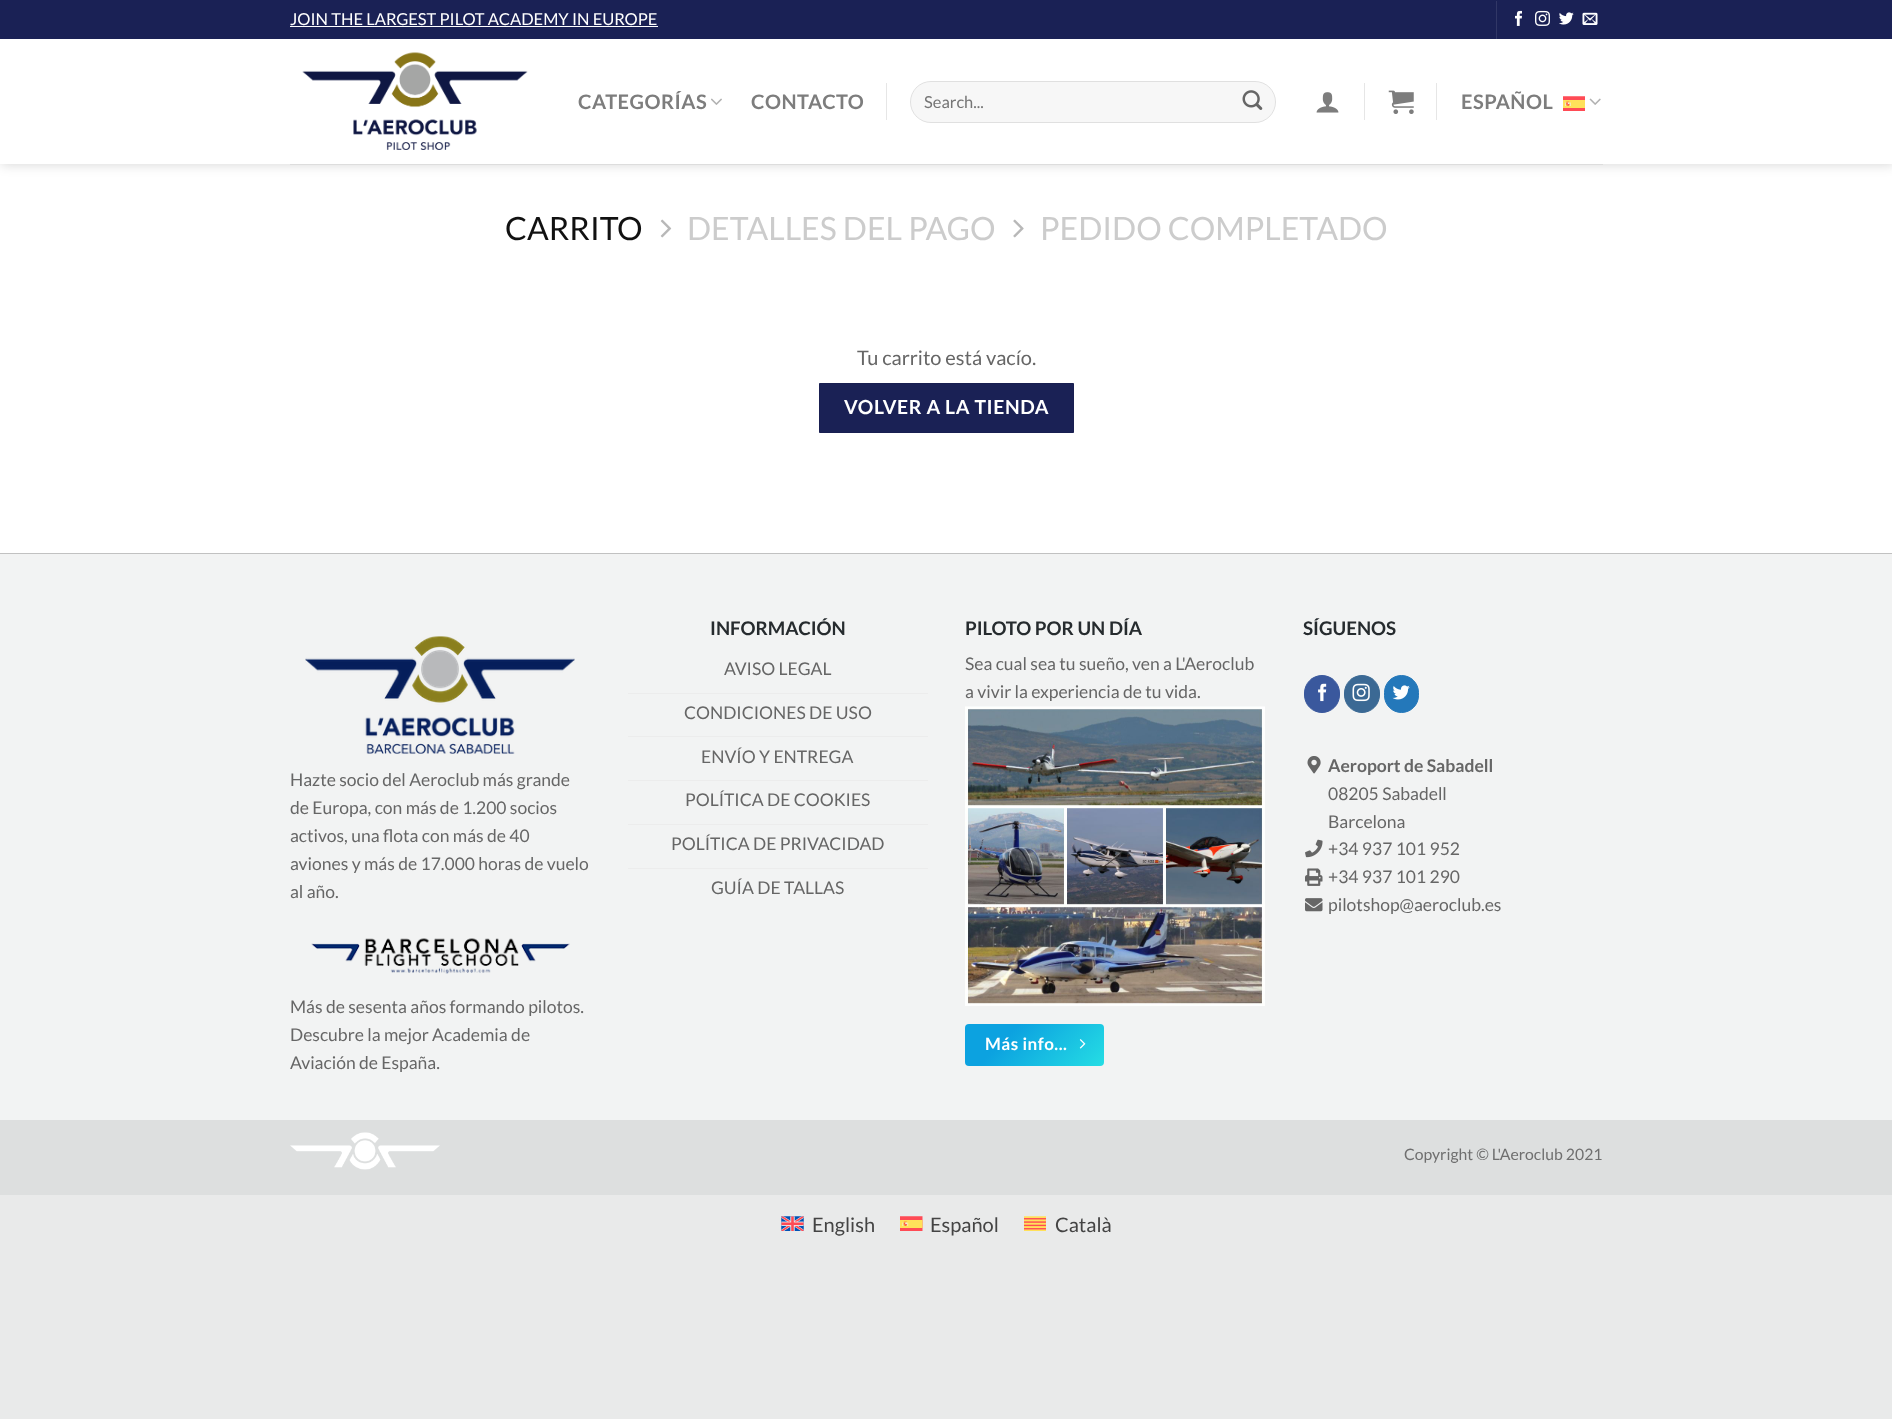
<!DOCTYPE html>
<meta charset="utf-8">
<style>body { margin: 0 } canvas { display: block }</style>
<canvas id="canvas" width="1892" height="1419"></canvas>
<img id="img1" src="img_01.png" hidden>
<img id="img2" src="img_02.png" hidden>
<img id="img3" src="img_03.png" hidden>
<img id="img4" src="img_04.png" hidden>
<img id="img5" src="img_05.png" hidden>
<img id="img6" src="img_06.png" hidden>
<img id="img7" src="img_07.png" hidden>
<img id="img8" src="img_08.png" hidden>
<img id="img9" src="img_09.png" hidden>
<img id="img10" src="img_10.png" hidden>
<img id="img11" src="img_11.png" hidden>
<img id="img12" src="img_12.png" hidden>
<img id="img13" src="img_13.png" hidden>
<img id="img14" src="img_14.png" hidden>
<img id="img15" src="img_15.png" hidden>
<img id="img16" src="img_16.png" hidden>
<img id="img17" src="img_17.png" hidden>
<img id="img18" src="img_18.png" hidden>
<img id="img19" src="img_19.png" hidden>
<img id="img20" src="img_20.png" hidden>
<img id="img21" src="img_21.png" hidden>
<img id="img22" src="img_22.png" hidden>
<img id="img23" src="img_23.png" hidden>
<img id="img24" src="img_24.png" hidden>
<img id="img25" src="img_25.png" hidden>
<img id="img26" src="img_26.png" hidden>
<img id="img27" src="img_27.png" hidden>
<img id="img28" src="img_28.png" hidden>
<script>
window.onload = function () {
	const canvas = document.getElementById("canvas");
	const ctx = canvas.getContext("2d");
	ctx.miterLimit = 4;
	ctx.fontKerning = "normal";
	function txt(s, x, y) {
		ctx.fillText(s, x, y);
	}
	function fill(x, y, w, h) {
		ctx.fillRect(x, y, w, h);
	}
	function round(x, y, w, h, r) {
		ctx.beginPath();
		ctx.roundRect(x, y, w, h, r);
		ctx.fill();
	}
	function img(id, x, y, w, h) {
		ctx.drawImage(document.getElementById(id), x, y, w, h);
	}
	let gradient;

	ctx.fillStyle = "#E9EAEA";
	fill(0, 0, 1892, 1419);
	ctx.fillStyle = "#FFFFFF";
	fill(0, 39, 1892, 514);
	ctx.save();
	ctx.beginPath();
	ctx.moveTo(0, 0);
	ctx.lineTo(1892, 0);
	ctx.lineTo(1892, 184);
	ctx.lineTo(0, 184);
	ctx.closePath();
	ctx.moveTo(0, 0);
	ctx.lineTo(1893, 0);
	ctx.lineTo(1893, 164);
	ctx.lineTo(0, 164);
	ctx.closePath();
	ctx.clip("evenodd");
	ctx.fillStyle = "rgba(0, 0, 0, 0.15)";
	ctx.filter = "blur(6px)";
	ctx.beginPath();
	ctx.rect(1, 1, 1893, 164);
	ctx.fill();
	ctx.filter = "none";
	ctx.restore();
	ctx.fillStyle = "#1A2155";
	fill(0, 0, 1892, 39);
	ctx.fillStyle = "#FFFFFF";
	fill(290, 26, 368, 1);
	ctx.fillStyle = "#313766";
	fill(1496, 1, 1, 38);
	img("img1", 1515, 10, 7, 16);
	img("img2", 1535, 10, 15, 16);
	img("img3", 1559, 12, 15, 13);
	img("img4", 1582, 12, 16, 13);
	img("img5", 302, 52, 226, 98);
	img("img6", 711, 98, 11, 7);
	ctx.fillStyle = "#E6E6E6";
	fill(886, 83, 1, 37);
	ctx.fillStyle = "#F7F7F7";
	round(910, 81, 366, 42, 21);
	ctx.beginPath();
	ctx.roundRect(910.5, 81.5, 365, 41, 20.5);
	ctx.strokeStyle = "rgba(0, 0, 0, 0.09)";
	ctx.stroke();
	img("img7", 1242, 90, 21, 20);
	img("img8", 1316, 92, 23, 21);
	ctx.fillStyle = "#E6E6E6";
	fill(1364, 83, 1, 37);
	img("img9", 1388, 90, 26, 24);
	fill(1436, 83, 1, 37);
	img("img10", 1563, 96, 22, 15);
	img("img11", 1589, 98, 12, 7);
	ctx.fillStyle = "#DDDDDD";
	fill(290, 164, 1313, 1);
	ctx.fillStyle = "rgba(255, 255, 255, 0.9)";
	fill(1, 163, 1891, 1);
	img("img12", 660, 219, 12, 19);
	img("img13", 1013, 219, 11, 19);
	ctx.fillStyle = "#1A2155";
	ctx.beginPath();
	ctx.rect(819.5, 383.5, 254, 49);
	ctx.fill();
	ctx.strokeStyle = "#191F51";
	ctx.stroke();
	ctx.fillStyle = "#F2F3F3";
	fill(0, 554, 1892, 566);
	ctx.fillStyle = "#DDDFDF";
	fill(0, 1120, 1892, 75);
	ctx.fillStyle = "#C1C1C1";
	fill(0, 553, 1892, 1);
	img("img14", 305, 636, 270, 118);
	img("img15", 311, 938, 259, 36);
	ctx.fillStyle = "#ECECEC";
	fill(628, 693, 300, 1);
	fill(628, 736, 300, 1);
	fill(628, 780, 300, 1);
	fill(628, 824, 300, 1);
	fill(628, 868, 300, 1);
	img("img16", 965, 706, 300, 300);
	gradient = ctx.createLinearGradient(989, 1000, 1080, 1090);
	gradient.addColorStop(0.3, "#0CA2E0");
	gradient.addColorStop(1, "#25DDE4");
	ctx.fillStyle = gradient;
	round(965, 1024, 139, 42, 4);
	img("img17", 1079, 1039, 7, 10);
	ctx.fillStyle = "#3A589D";
	ctx.beginPath();
	ctx.roundRect(1304.5, 675.5, 35, 37, 17.5);
	ctx.fill();
	ctx.strokeStyle = "#3A589D";
	ctx.stroke();
	img("img18", 1318, 683, 9, 19);
	ctx.fillStyle = "#3B6994";
	ctx.beginPath();
	ctx.roundRect(1344.5, 675.5, 35, 37, 17.5);
	ctx.fill();
	ctx.strokeStyle = "#3B6994";
	ctx.stroke();
	img("img19", 1352, 683, 18, 19);
	ctx.fillStyle = "#2478BA";
	ctx.beginPath();
	ctx.roundRect(1384.5, 675.5, 34, 37, 17);
	ctx.fill();
	ctx.strokeStyle = "#2478BA";
	ctx.stroke();
	img("img20", 1392, 685, 18, 15);
	img("img21", 1307, 756, 14, 18);
	img("img22", 1305, 839, 18, 19);
	img("img23", 1305, 868, 18, 18);
	img("img24", 1305, 898, 18, 14);
	img("img25", 290, 1132, 150, 38);
	img("img26", 781, 1216, 23, 15);
	img("img27", 900, 1216, 23, 15);
	img("img28", 1024, 1216, 22, 15);
	ctx.font = "16.5px Lato";
	ctx.fillStyle = "#FFFFFF";
	txt("JOIN THE LARGEST PILOT ACADEMY IN EUROPE", 290, 25);
	ctx.letterSpacing = "0.5px";
	ctx.font = "bold 20px Lato";
	ctx.fillStyle = "#7D7D7D";
	txt("CATEGORÍAS", 578, 109);
	txt("CONTACTO", 751, 109);
	ctx.letterSpacing = "0px";
	ctx.font = "16.5px Lato";
	ctx.fillStyle = "#757575";
	txt("Search...", 924, 108);
	ctx.letterSpacing = "0.5px";
	ctx.font = "bold 20px Lato";
	ctx.fillStyle = "#7D7D7D";
	txt("ESPAÑOL", 1461, 109);
	ctx.letterSpacing = "0px";
	ctx.font = "32px Lato";
	ctx.fillStyle = "#111111";
	txt("CARRITO", 505, 240);
	ctx.fillStyle = "#CCCCCC";
	txt("DETALLES DEL PAGO", 687, 240);
	txt("PEDIDO COMPLETADO", 1040, 240);
	ctx.font = "20px Lato";
	ctx.fillStyle = "#666666";
	txt("Tu carrito está vacío.", 857, 365);
	ctx.letterSpacing = "0.6px";
	ctx.font = "bold 19.4px Lato";
	ctx.fillStyle = "#FFFFFF";
	txt("VOLVER A LA TIENDA", 844, 414);
	ctx.letterSpacing = "0px";
	ctx.font = "17.5px Lato";
	ctx.fillStyle = "#666666";
	txt("Hazte socio del Aeroclub más grande", 290, 786);
	txt("de Europa, con más de 1.200 socios", 290, 814);
	txt("activos, una flota con más de 40", 290, 842);
	txt("aviones y más de 17.000 horas de vuelo", 290, 870);
	txt("al año.", 290, 898);
	txt("Más de sesenta años formando pilotos.", 290, 1013);
	txt("Descubre la mejor Academia de", 290, 1041);
	txt("Aviación de España.", 290, 1069);
	ctx.font = "bold 18.75px Lato";
	ctx.fillStyle = "#262B2E";
	txt("INFORMACIÓN", 710, 635);
	ctx.font = "17.5px Lato";
	ctx.fillStyle = "#666666";
	txt("AVISO LEGAL", 724, 675);
	txt("CONDICIONES DE USO", 684, 719);
	txt("ENVÍO Y ENTREGA", 701, 763);
	txt("POLÍTICA DE COOKIES", 685, 806);
	txt("POLÍTICA DE PRIVACIDAD", 671, 850);
	txt("GUÍA DE TALLAS", 711, 894);
	ctx.font = "bold 18.75px Lato";
	ctx.fillStyle = "#262B2E";
	txt("PILOTO POR UN DÍA", 965, 635);
	ctx.font = "17.5px Lato";
	ctx.fillStyle = "#666666";
	txt("Sea cual sea tu sueño, ven a L'Aeroclub", 965, 670);
	txt("a vivir la experiencia de tu vida.", 965, 698);
	ctx.letterSpacing = "0.5px";
	ctx.font = "bold 17px Lato";
	ctx.fillStyle = "#FFFFFF";
	txt("Más info...", 985, 1050);
	ctx.letterSpacing = "0px";
	ctx.font = "bold 18.75px Lato";
	ctx.fillStyle = "#262B2E";
	txt("SÍGUENOS", 1303, 635);
	ctx.font = "bold 17.5px Lato";
	ctx.fillStyle = "#666666";
	txt("Aeroport de Sabadell", 1328, 772);
	ctx.font = "17.5px Lato";
	txt("08205 Sabadell", 1328, 800);
	txt("Barcelona", 1328, 828);
	txt("+34 937 101 952", 1328, 855);
	txt("+34 937 101 290", 1328, 883);
	txt("pilotshop@aeroclub.es", 1328, 911);
	ctx.font = "15.75px Lato";
	ctx.fillStyle = "#6F6F6F";
	txt("Copyright © L'Aeroclub 2021", 1404, 1160);
	ctx.font = "20px Lato";
	ctx.fillStyle = "#444444";
	txt("English", 812, 1232);
	txt("Español", 930, 1232);
	txt("Català", 1055, 1232);
};
</script>
